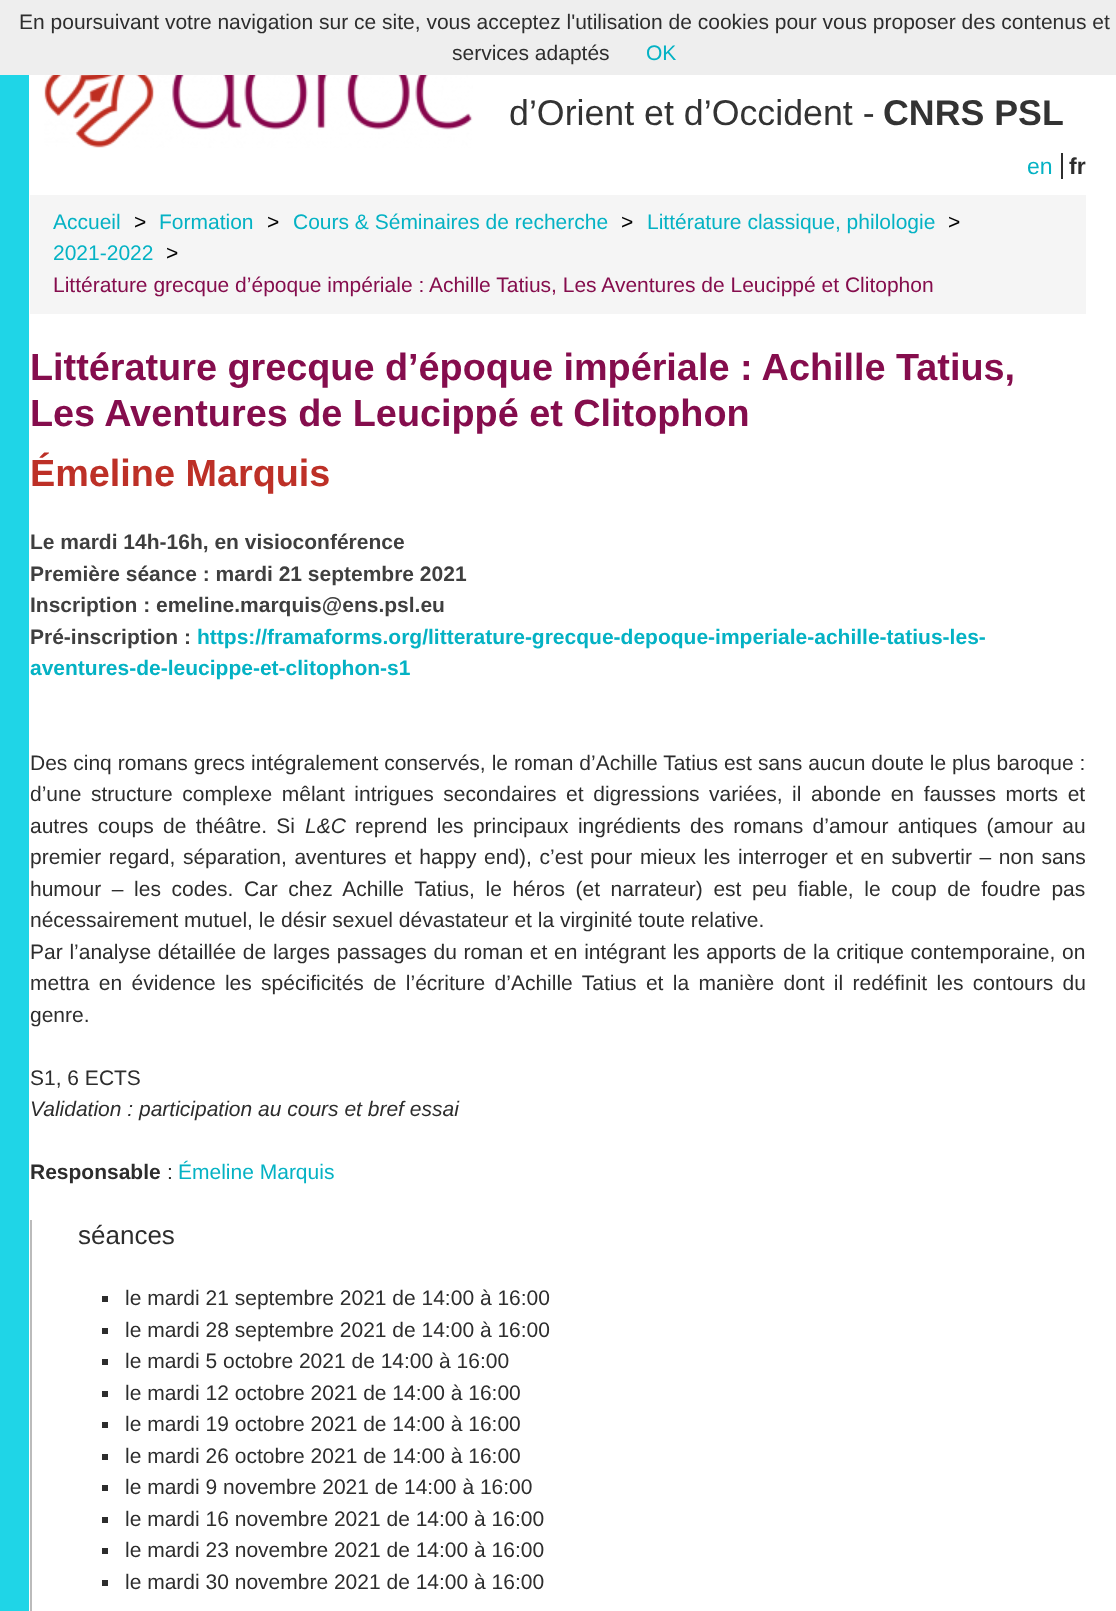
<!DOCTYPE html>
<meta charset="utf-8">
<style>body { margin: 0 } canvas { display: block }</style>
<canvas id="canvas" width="1116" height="1611"></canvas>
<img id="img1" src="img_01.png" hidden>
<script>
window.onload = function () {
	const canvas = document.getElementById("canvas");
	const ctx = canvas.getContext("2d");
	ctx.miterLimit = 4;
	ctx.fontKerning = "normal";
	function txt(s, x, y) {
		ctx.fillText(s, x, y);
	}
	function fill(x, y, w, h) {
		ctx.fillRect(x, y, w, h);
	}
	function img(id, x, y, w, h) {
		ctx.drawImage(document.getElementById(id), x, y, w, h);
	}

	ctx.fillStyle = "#FFFFFF";
	fill(0, 0, 1116, 1611);
	ctx.fillStyle = "#EEEEEE";
	fill(0, 0, 1116, 75);
	ctx.fillStyle = "#1FD5E7";
	fill(0, 75, 29, 1536);
	img("img1", 44, 75, 429, 73);
	ctx.fillStyle = "#2D2D2D";
	fill(1061, 153, 2, 26);
	ctx.fillStyle = "#F5F5F5";
	fill(30, 195, 1056, 119);
	ctx.fillStyle = "#BBBBBB";
	fill(30, 1220, 2, 391);
	ctx.fillStyle = "#2D2D2D";
	fill(102, 1296, 6, 6);
	fill(102, 1328, 6, 6);
	fill(102, 1359, 6, 6);
	fill(102, 1391, 6, 6);
	fill(102, 1422, 6, 6);
	fill(102, 1454, 6, 6);
	fill(102, 1485, 6, 6);
	fill(102, 1517, 6, 6);
	fill(102, 1548, 6, 6);
	fill(102, 1580, 6, 6);
	ctx.font = "21px Liberation Sans";
	txt("En poursuivant votre navigation sur ce site, vous acceptez l'utilisation de cookies pour vous proposer des contenus et", 19, 29);
	txt("services adaptés", 452, 60);
	ctx.fillStyle = "#04B2C4";
	txt("OK", 646, 60);
	ctx.font = "35.75px Liberation Sans";
	ctx.fillStyle = "#333333";
	txt("d’Orient et d’Occident -", 509, 125);
	ctx.font = "bold 35.75px Liberation Sans";
	txt("CNRS PSL", 883, 125);
	ctx.font = "23px Liberation Sans";
	ctx.fillStyle = "#04B2C4";
	txt("en", 1027, 174);
	ctx.font = "bold 23px Liberation Sans";
	ctx.fillStyle = "#2D2D2D";
	txt("fr", 1069, 174);
	ctx.font = "21px Liberation Sans";
	ctx.fillStyle = "#04B2C4";
	txt("Accueil", 53, 229);
	ctx.fillStyle = "#000000";
	txt(">", 134, 229);
	ctx.fillStyle = "#04B2C4";
	txt("Formation", 159, 229);
	ctx.fillStyle = "#000000";
	txt(">", 267, 229);
	ctx.fillStyle = "#04B2C4";
	txt("Cours & Séminaires de recherche", 293, 229);
	ctx.fillStyle = "#000000";
	txt(">", 621, 229);
	ctx.fillStyle = "#04B2C4";
	txt("Littérature classique, philologie", 647, 229);
	ctx.fillStyle = "#000000";
	txt(">", 948, 229);
	ctx.fillStyle = "#04B2C4";
	txt("2021-2022", 53, 260);
	ctx.fillStyle = "#000000";
	txt(">", 166, 260);
	ctx.fillStyle = "#850D4D";
	txt("Littérature grecque d’époque impériale : Achille Tatius, Les Aventures de Leucippé et Clitophon", 53, 292);
	ctx.font = "bold 37.8px Liberation Sans";
	txt("Littérature grecque d’époque impériale : Achille Tatius,", 30, 380);
	txt("Les Aventures de Leucippé et Clitophon", 30, 426);
	ctx.fillStyle = "#BD3027";
	txt("Émeline Marquis", 30, 486);
	ctx.font = "bold 21px Liberation Sans";
	ctx.fillStyle = "#3F3F3F";
	txt("Le mardi 14h-16h, en visioconférence", 30, 549);
	txt("Première séance : mardi 21 septembre 2021", 30, 581);
	txt("Inscription : emeline.marquis@ens.psl.eu", 30, 612);
	txt("Pré-inscription :", 30, 644);
	ctx.fillStyle = "#04B2C4";
	txt("https://framaforms.org/litterature-grecque-depoque-imperiale-achille-tatius-les-", 197, 644);
	txt("aventures-de-leucippe-et-clitophon-s1", 30, 675);
	ctx.wordSpacing = "0.1px";
	ctx.font = "21px Liberation Sans";
	ctx.fillStyle = "#2D2D2D";
	txt("Des cinq romans grecs intégralement conservés, le roman d’Achille Tatius est sans aucun doute le plus baroque :", 30, 770);
	ctx.wordSpacing = "3.75px";
	txt("d’une structure complexe mêlant intrigues secondaires et digressions variées, il abonde en fausses morts et", 30, 801);
	ctx.wordSpacing = "3.5px";
	txt("autres coups de théâtre. Si", 30, 833);
	ctx.wordSpacing = "0px";
	ctx.font = "italic 21px Liberation Sans";
	txt("L&C", 305, 833);
	ctx.wordSpacing = "3.5px";
	ctx.font = "21px Liberation Sans";
	txt("reprend les principaux ingrédients des romans d’amour antiques (amour au", 355, 833);
	ctx.wordSpacing = "1.75px";
	txt("premier regard, séparation, aventures et happy end), c’est pour mieux les interroger et en subvertir – non sans", 30, 864);
	ctx.wordSpacing = "4.75px";
	txt("humour – les codes. Car chez Achille Tatius, le héros (et narrateur) est peu fiable, le coup de foudre pas", 30, 896);
	ctx.wordSpacing = "0px";
	txt("nécessairement mutuel, le désir sexuel dévastateur et la virginité toute relative.", 30, 927);
	ctx.wordSpacing = "0.9px";
	txt("Par l’analyse détaillée de larges passages du roman et en intégrant les apports de la critique contemporaine, on", 30, 959);
	ctx.wordSpacing = "3.5px";
	txt("mettra en évidence les spécificités de l’écriture d’Achille Tatius et la manière dont il redéfinit les contours du", 30, 990);
	ctx.wordSpacing = "0px";
	txt("genre.", 30, 1022);
	txt("S1, 6 ECTS", 30, 1085);
	ctx.font = "italic 21px Liberation Sans";
	txt("Validation : participation au cours et bref essai", 30, 1116);
	ctx.font = "bold 21px Liberation Sans";
	txt("Responsable", 30, 1179);
	ctx.font = "21px Liberation Sans";
	txt(":", 167, 1179);
	ctx.fillStyle = "#04B2C4";
	txt("Émeline Marquis", 178, 1179);
	ctx.font = "26px Liberation Sans";
	ctx.fillStyle = "#2D2D2D";
	txt("séances", 78, 1244);
	ctx.font = "21px Liberation Sans";
	txt("le mardi 21 septembre 2021 de 14:00 à 16:00", 125, 1305);
	txt("le mardi 28 septembre 2021 de 14:00 à 16:00", 125, 1337);
	txt("le mardi 5 octobre 2021 de 14:00 à 16:00", 125, 1368);
	txt("le mardi 12 octobre 2021 de 14:00 à 16:00", 125, 1400);
	txt("le mardi 19 octobre 2021 de 14:00 à 16:00", 125, 1431);
	txt("le mardi 26 octobre 2021 de 14:00 à 16:00", 125, 1463);
	txt("le mardi 9 novembre 2021 de 14:00 à 16:00", 125, 1494);
	txt("le mardi 16 novembre 2021 de 14:00 à 16:00", 125, 1526);
	txt("le mardi 23 novembre 2021 de 14:00 à 16:00", 125, 1557);
	txt("le mardi 30 novembre 2021 de 14:00 à 16:00", 125, 1589);
};
</script>
